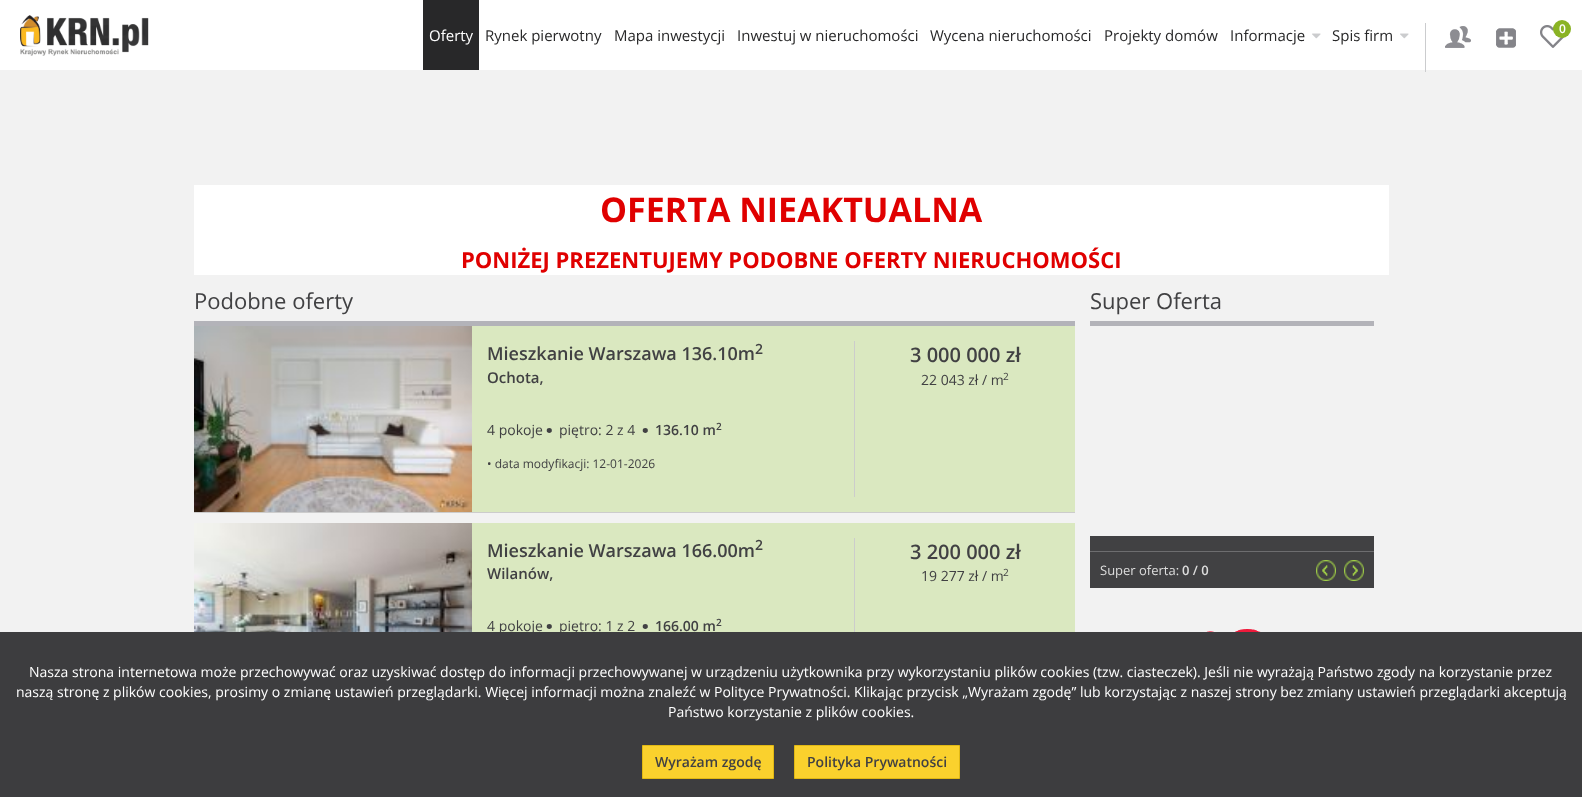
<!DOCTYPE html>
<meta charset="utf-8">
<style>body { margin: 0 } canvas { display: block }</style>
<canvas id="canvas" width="1582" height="797"></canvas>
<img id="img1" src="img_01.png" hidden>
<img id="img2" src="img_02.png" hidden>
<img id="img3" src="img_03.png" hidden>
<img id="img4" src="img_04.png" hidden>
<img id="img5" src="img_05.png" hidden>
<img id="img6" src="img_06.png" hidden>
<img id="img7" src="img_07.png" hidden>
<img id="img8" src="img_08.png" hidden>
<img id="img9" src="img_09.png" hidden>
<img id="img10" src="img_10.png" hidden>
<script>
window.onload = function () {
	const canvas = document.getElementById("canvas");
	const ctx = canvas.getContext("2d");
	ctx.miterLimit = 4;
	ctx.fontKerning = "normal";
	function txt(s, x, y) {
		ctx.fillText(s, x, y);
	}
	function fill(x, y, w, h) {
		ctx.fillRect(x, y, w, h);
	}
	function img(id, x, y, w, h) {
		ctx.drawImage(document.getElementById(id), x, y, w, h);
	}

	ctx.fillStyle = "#F2F2F2";
	fill(0, 0, 1582, 797);
	ctx.fillStyle = "#FFFFFF";
	fill(0, 0, 1582, 70);
	img("img1", 20, 15, 129, 41);
	ctx.fillStyle = "#282829";
	fill(423, 0, 56, 70);
	img("img2", 1312, 33, 9, 6);
	img("img2", 1400, 33, 9, 6);
	ctx.fillStyle = "#CBCCCE";
	fill(1425, 23, 1, 49);
	img("img3", 1445, 26, 26, 22);
	img("img4", 1496, 28, 20, 20);
	img("img5", 1540, 25, 25, 23);
	ctx.fillStyle = "#8AB324";
	ctx.beginPath();
	ctx.arc(1562, 29, 9, 0, Math.PI * 2);
	ctx.fill();
	ctx.fillStyle = "#FFFFFF";
	fill(194, 185, 1195, 90);
	ctx.fillStyle = "#B3B3B9";
	fill(194, 321, 881, 5);
	ctx.fillStyle = "#DAE8C0";
	fill(472, 326, 603, 186);
	ctx.fillStyle = "#CCCCCC";
	fill(194, 512, 881, 1);
	img("img6", 194, 326, 278, 186);
	fill(854, 341, 1, 156);
	ctx.fillStyle = "#DAE8C0";
	fill(472, 523, 603, 109);
	img("img7", 194, 523, 278, 109);
	ctx.fillStyle = "#CCCCCC";
	fill(854, 538, 1, 94);
	ctx.fillStyle = "#B3B3B9";
	fill(1090, 321, 284, 5);
	ctx.fillStyle = "#414143";
	fill(1090, 536, 284, 15);
	ctx.fillStyle = "#6D6D6F";
	fill(1090, 551, 284, 1);
	ctx.fillStyle = "#414143";
	fill(1090, 552, 284, 36);
	img("img8", 1316, 560, 20, 21);
	img("img9", 1344, 560, 20, 21);
	img("img10", 1206, 629, 55, 3);
	ctx.font = "15px Open Sans";
	ctx.fillStyle = "#FFFFFF";
	txt("Oferty", 429, 41);
	ctx.fillStyle = "#282829";
	txt("Rynek pierwotny", 485, 41);
	txt("Mapa inwestycji", 614, 41);
	txt("Inwestuj w nieruchomości", 737, 41);
	txt("Wycena nieruchomości", 930, 41);
	txt("Projekty domów", 1104, 41);
	txt("Informacje", 1230, 41);
	txt("Spis firm", 1332, 41);
	ctx.font = "600 12px Open Sans";
	ctx.fillStyle = "#FFFFFF";
	txt("0", 1559, 33);
	ctx.font = "bold 34px Open Sans";
	ctx.fillStyle = "#E00000";
	txt("OFERTA NIEAKTUALNA", 600, 222);
	ctx.font = "bold 22px Open Sans";
	txt("PONIŻEJ PREZENTUJEMY PODOBNE OFERTY NIERUCHOMOŚCI", 461, 268);
	ctx.font = "22px Open Sans";
	ctx.fillStyle = "#414143";
	txt("Podobne oferty", 194, 309);
	ctx.font = "600 18px Open Sans";
	txt("Mieszkanie Warszawa 136.10m", 487, 360);
	ctx.font = "600 14px Open Sans";
	txt("2", 755, 354);
	ctx.font = "600 15px Open Sans";
	txt("Ochota,", 487, 383);
	ctx.font = "14px Open Sans";
	txt("4 pokoje", 487, 435);
	ctx.font = "bold 30px Open Sans";
	txt("·", 545, 441);
	ctx.font = "14px Open Sans";
	txt("piętro: 2 z 4", 559, 435);
	ctx.font = "bold 30px Open Sans";
	txt("·", 641, 441);
	ctx.font = "600 14px Open Sans";
	txt("136.10 m", 655, 435);
	ctx.font = "600 10px Open Sans";
	txt("2", 716, 430);
	ctx.font = "12px Open Sans";
	txt("• data modyfikacji: 12-01-2026", 487, 468);
	ctx.font = "600 20px Open Sans";
	txt("3 000 000 zł", 910, 362);
	ctx.font = "14px Open Sans";
	txt("22 043 zł / m", 921, 385);
	ctx.font = "10px Open Sans";
	txt("2", 1003, 380);
	ctx.font = "600 18px Open Sans";
	txt("Mieszkanie Warszawa 166.00m", 487, 557);
	ctx.font = "600 14px Open Sans";
	txt("2", 755, 550);
	ctx.font = "600 15px Open Sans";
	txt("Wilanów,", 487, 579);
	ctx.font = "14px Open Sans";
	txt("4 pokoje", 487, 631);
	ctx.font = "bold 30px Open Sans";
	txt("·", 545, 637);
	ctx.font = "14px Open Sans";
	txt("piętro: 1 z 2", 559, 631);
	ctx.font = "bold 30px Open Sans";
	txt("·", 641, 637);
	ctx.font = "600 14px Open Sans";
	txt("166.00 m", 655, 631);
	ctx.font = "600 10px Open Sans";
	txt("2", 716, 626);
	ctx.font = "600 20px Open Sans";
	txt("3 200 000 zł", 910, 559);
	ctx.font = "14px Open Sans";
	txt("19 277 zł / m", 921, 581);
	ctx.font = "10px Open Sans";
	txt("2", 1003, 576);
	ctx.font = "22px Open Sans";
	txt("Super Oferta", 1090, 309);
	ctx.font = "13px Open Sans";
	ctx.fillStyle = "#DDDDDD";
	txt("Super oferta:", 1100, 575);
	ctx.font = "600 13px Open Sans";
	txt("0 / 0", 1182, 575);
	ctx.fillStyle = "#3D3D3F";
	fill(0, 632, 1582, 165);
	ctx.font = "14px Open Sans";
	ctx.fillStyle = "#FFFFFF";
	txt("Nasza strona internetowa może przechowywać oraz uzyskiwać dostęp do informacji przechowywanej w urządzeniu użytkownika przy wykorzystaniu plików cookies (tzw. ciasteczek). Jeśli nie wyrażają Państwo zgody na korzystanie przez", 29, 677);
	txt("naszą stronę z plików cookies, prosimy o zmianę ustawień przeglądarki. Więcej informacji można znaleźć w Polityce Prywatności. Klikając przycisk „Wyrażam zgodę” lub korzystając z naszej strony bez zmiany ustawień przeglądarki akceptują", 16, 697);
	txt("Państwo korzystanie z plików cookies.", 668, 717);
	ctx.fillStyle = "#FAD12D";
	ctx.beginPath();
	ctx.rect(642.5, 745.5, 131, 33);
	ctx.fill();
	ctx.strokeStyle = "#E1B814";
	ctx.stroke();
	ctx.font = "600 14px Open Sans";
	ctx.fillStyle = "#414143";
	txt("Wyrażam zgodę", 655, 767);
	ctx.fillStyle = "#FAD12D";
	ctx.beginPath();
	ctx.rect(794.5, 745.5, 165, 33);
	ctx.fill();
	ctx.stroke();
	ctx.fillStyle = "#414143";
	txt("Polityka Prywatności", 807, 767);
};
</script>
